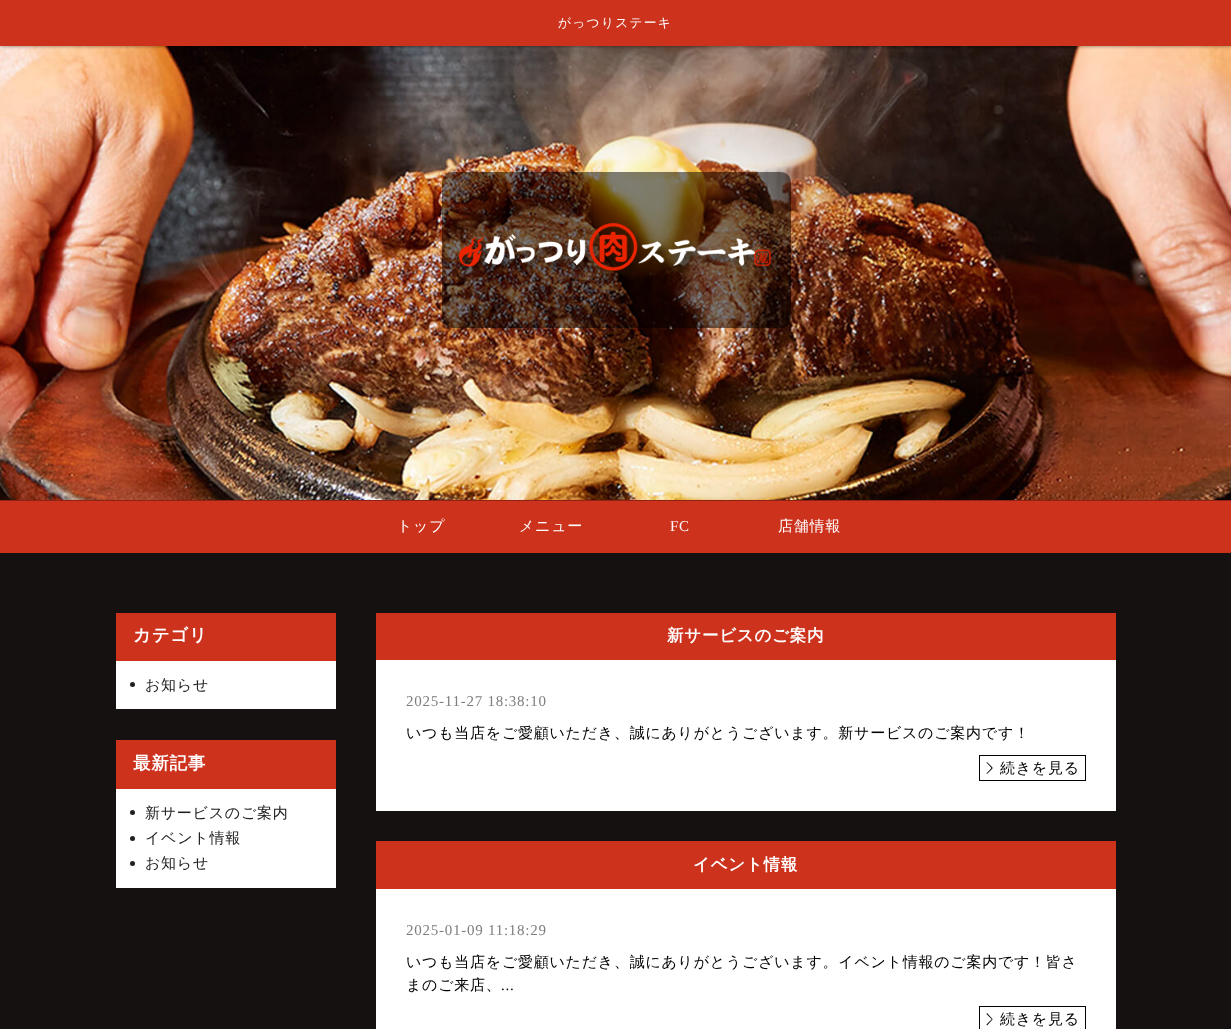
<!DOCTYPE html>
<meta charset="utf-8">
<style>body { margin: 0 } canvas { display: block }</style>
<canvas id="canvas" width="1231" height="1029"></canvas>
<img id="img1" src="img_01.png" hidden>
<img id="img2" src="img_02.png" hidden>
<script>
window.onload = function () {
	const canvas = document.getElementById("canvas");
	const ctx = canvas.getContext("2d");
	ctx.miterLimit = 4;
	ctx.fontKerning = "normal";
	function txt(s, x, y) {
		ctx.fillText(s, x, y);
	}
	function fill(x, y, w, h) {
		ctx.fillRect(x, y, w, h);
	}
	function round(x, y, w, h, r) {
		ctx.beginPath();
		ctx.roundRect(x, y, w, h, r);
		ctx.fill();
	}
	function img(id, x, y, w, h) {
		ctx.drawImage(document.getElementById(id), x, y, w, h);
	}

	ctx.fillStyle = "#151110";
	fill(0, 0, 1231, 1029);
	ctx.fillStyle = "#CD321D";
	fill(0, 500, 1231, 53);
	ctx.fillStyle = "rgba(0, 0, 0, 0.3)";
	ctx.filter = "blur(0.5px)";
	ctx.beginPath();
	ctx.rect(0, 1, 1231, 500);
	ctx.fill();
	ctx.filter = "none";
	img("img1", 0, 46, 1231, 454);
	ctx.filter = "blur(1.5px)";
	ctx.beginPath();
	ctx.rect(0, 1, 1231, 46);
	ctx.fill();
	ctx.filter = "none";
	ctx.fillStyle = "#CD321D";
	fill(0, 0, 1231, 46);
	ctx.fillStyle = "rgba(0, 0, 0, 0.5)";
	round(442, 172, 349, 156, 10);
	img("img2", 458, 223, 320, 57);
	ctx.fillStyle = "#FFFFFF";
	fill(116, 661, 220, 48);
	ctx.fillStyle = "#CD321D";
	fill(116, 613, 220, 48);
	ctx.fillStyle = "#212121";
	ctx.beginPath();
	ctx.arc(132.5, 684.5, 2.5, 0, Math.PI * 2);
	ctx.fill();
	ctx.fillStyle = "#FFFFFF";
	fill(116, 789, 220, 99);
	ctx.fillStyle = "#CD321D";
	fill(116, 740, 220, 49);
	ctx.fillStyle = "#212121";
	ctx.beginPath();
	ctx.arc(132.5, 812.5, 2.5, 0, Math.PI * 2);
	ctx.fill();
	ctx.beginPath();
	ctx.arc(132.5, 838.5, 2.5, 0, Math.PI * 2);
	ctx.fill();
	ctx.beginPath();
	ctx.arc(132.5, 863.5, 2.5, 0, Math.PI * 2);
	ctx.fill();
	ctx.fillStyle = "#FFFFFF";
	fill(376, 660, 740, 151);
	ctx.fillStyle = "#CD321D";
	fill(376, 613, 740, 47);
	ctx.strokeStyle = "#010101";
	ctx.strokeRect(979.5, 755.5, 106, 25);
	ctx.fillStyle = "#010101";
	ctx.beginPath();
	ctx.moveTo(987, 762);
	ctx.lineTo(992.5, 767.5);
	ctx.lineTo(992, 768.5);
	ctx.lineTo(986.5, 762.5);
	ctx.closePath();
	ctx.fill();
	ctx.beginPath();
	ctx.moveTo(986.5, 773.5);
	ctx.lineTo(992, 767.5);
	ctx.lineTo(992.5, 768.5);
	ctx.lineTo(987, 774);
	ctx.closePath();
	ctx.fill();
	ctx.fillStyle = "#FFFFFF";
	fill(376, 889, 740, 140);
	ctx.fillStyle = "#CD321D";
	fill(376, 841, 740, 48);
	ctx.strokeRect(979.5, 1006.5, 106, 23);
	ctx.fillStyle = "#010101";
	ctx.beginPath();
	ctx.moveTo(987, 1013);
	ctx.lineTo(992.5, 1019);
	ctx.lineTo(992, 1019.5);
	ctx.lineTo(986.5, 1014);
	ctx.closePath();
	ctx.fill();
	ctx.beginPath();
	ctx.moveTo(986.5, 1024.5);
	ctx.lineTo(992, 1019);
	ctx.lineTo(992.5, 1019.5);
	ctx.lineTo(987, 1025.5);
	ctx.closePath();
	ctx.fill();
	ctx.letterSpacing = "1.25px";
	ctx.font = "500 12.75px WenQuanYi Zen Hei";
	ctx.fillStyle = "#FEFEFE";
	txt("がっつりステーキ", 558, 27);
	ctx.letterSpacing = "0.75px";
	ctx.font = "500 15px WenQuanYi Zen Hei";
	txt("トップ", 397, 531);
	txt("メニュー", 519, 531);
	ctx.font = "15px Liberation Serif";
	txt("FC", 670, 531);
	ctx.font = "500 15px WenQuanYi Zen Hei";
	txt("店舗情報", 778, 531);
	ctx.font = "bold 17.5px WenQuanYi Zen Hei";
	txt("カテゴリ", 133, 641);
	ctx.font = "500 15px WenQuanYi Zen Hei";
	ctx.fillStyle = "#212121";
	txt("お知らせ", 145, 690);
	ctx.font = "bold 17.5px WenQuanYi Zen Hei";
	ctx.fillStyle = "#FEFEFE";
	txt("最新記事", 133, 769);
	ctx.font = "500 15px WenQuanYi Zen Hei";
	ctx.fillStyle = "#212121";
	txt("新サービスのご案内", 145, 818);
	txt("イベント情報", 145, 843);
	txt("お知らせ", 145, 868);
	ctx.font = "bold 16.5px WenQuanYi Zen Hei";
	ctx.fillStyle = "#FEFEFE";
	txt("新サービスのご案内", 667, 641);
	ctx.font = "15px Liberation Serif";
	ctx.fillStyle = "#7E7E7E";
	txt("2025-11-27 18:38:10", 406, 706);
	ctx.font = "500 15px WenQuanYi Zen Hei";
	ctx.fillStyle = "#010101";
	txt("いつも当店をご愛顧いただき、誠にありがとうございます。新サービスのご案内です！", 406, 738);
	txt("続きを見る", 1000, 773);
	ctx.font = "bold 16.5px WenQuanYi Zen Hei";
	ctx.fillStyle = "#FEFEFE";
	txt("イベント情報", 693, 870);
	ctx.font = "15px Liberation Serif";
	ctx.fillStyle = "#7E7E7E";
	txt("2025-01-09 11:18:29", 406, 935);
	ctx.font = "500 15px WenQuanYi Zen Hei";
	ctx.fillStyle = "#010101";
	txt("いつも当店をご愛顧いただき、誠にありがとうございます。イベント情報のご案内です！皆さ", 406, 967);
	txt("まのご来店、", 406, 990);
	ctx.font = "15px Liberation Serif";
	txt("...", 501, 990);
	ctx.font = "500 15px WenQuanYi Zen Hei";
	txt("続きを見る", 1000, 1024);
};
</script>
